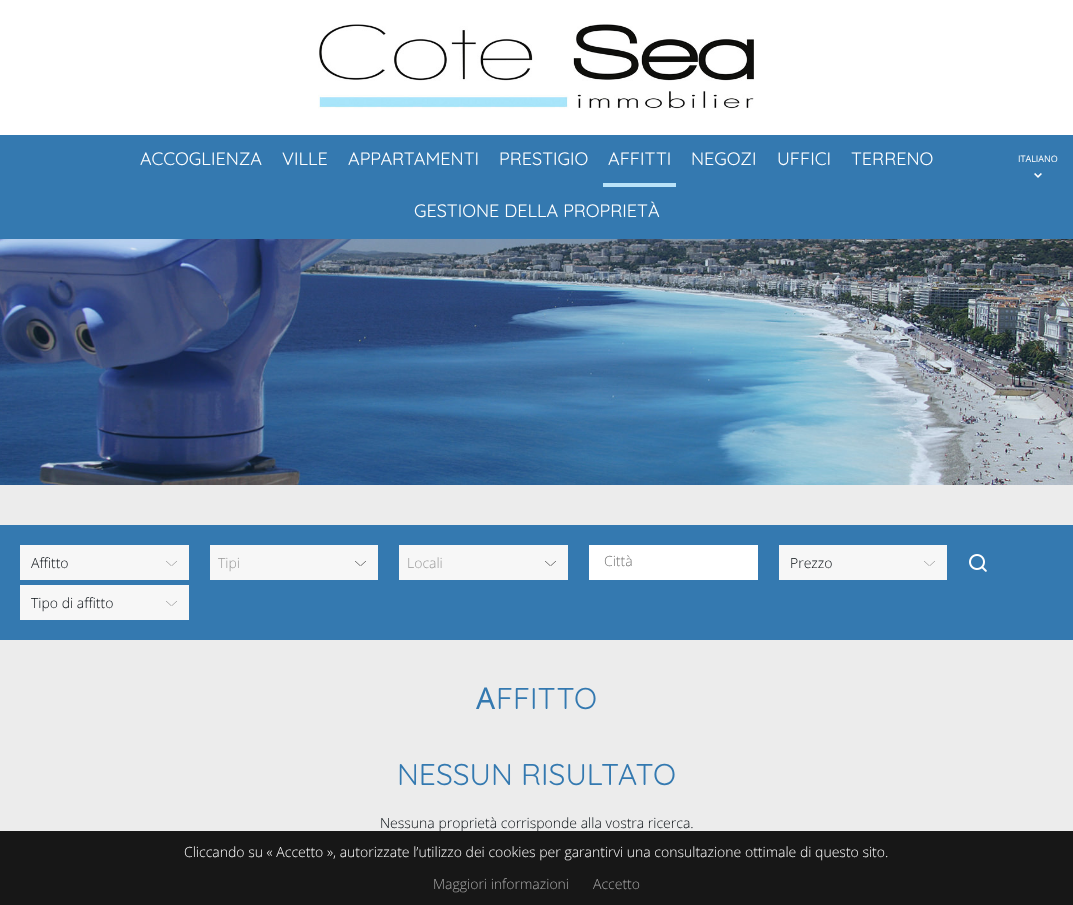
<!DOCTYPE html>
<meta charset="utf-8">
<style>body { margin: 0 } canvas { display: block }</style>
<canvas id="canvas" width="1073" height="905"></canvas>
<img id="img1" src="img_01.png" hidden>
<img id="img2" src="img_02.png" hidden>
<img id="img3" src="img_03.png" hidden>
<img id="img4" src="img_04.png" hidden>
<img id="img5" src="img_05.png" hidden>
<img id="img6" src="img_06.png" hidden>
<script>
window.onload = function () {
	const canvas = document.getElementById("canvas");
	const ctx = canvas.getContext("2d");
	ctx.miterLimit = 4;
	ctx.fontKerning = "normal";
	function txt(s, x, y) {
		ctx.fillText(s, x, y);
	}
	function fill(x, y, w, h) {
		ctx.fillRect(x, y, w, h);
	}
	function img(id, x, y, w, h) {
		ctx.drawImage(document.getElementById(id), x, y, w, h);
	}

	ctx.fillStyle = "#ECECEC";
	fill(0, 0, 1073, 905);
	img("img1", 0, 239, 1073, 246);
	ctx.fillStyle = "#FFFFFF";
	fill(0, 0, 1073, 135);
	img("img2", 318, 24, 436, 85);
	ctx.fillStyle = "#3479B0";
	fill(0, 135, 1073, 104);
	ctx.fillStyle = "#BAE3F9";
	fill(603, 183, 73, 4);
	img("img3", 1034, 173, 8, 5);
	ctx.fillStyle = "#3479B0";
	fill(0, 525, 1073, 115);
	ctx.fillStyle = "#F7F7F7";
	fill(20, 545, 169, 35);
	img("img4", 166, 561, 11, 5);
	fill(210, 545, 168, 35);
	img("img4", 355, 561, 11, 5);
	img("img5", 355, 561, 11, 5);
	fill(399, 545, 169, 35);
	img("img4", 545, 561, 11, 5);
	img("img5", 545, 561, 11, 5);
	ctx.fillStyle = "#FFFFFF";
	fill(589, 545, 169, 35);
	ctx.fillStyle = "#F7F7F7";
	fill(779, 545, 168, 35);
	img("img4", 924, 561, 11, 5);
	img("img6", 969, 554, 18, 18);
	fill(20, 585, 169, 35);
	img("img4", 166, 601, 11, 5);
	ctx.font = "300 18px Quicksand";
	ctx.fillStyle = "#FFFFFF";
	txt("ACCOGLIENZA", 140, 165);
	txt("VILLE", 282, 165);
	txt("APPARTAMENTI", 348, 165);
	txt("PRESTIGIO", 499, 165);
	txt("AFFITTI", 608, 165);
	txt("NEGOZI", 691, 165);
	txt("UFFICI", 777, 165);
	txt("TERRENO", 851, 165);
	txt("GESTIONE DELLA PROPRIETÀ", 414, 217);
	ctx.font = "9px Open Sans";
	txt("ITALIANO", 1018, 162);
	ctx.font = "300 14px Open Sans";
	ctx.fillStyle = "#050B10";
	txt("Affitto", 31, 568);
	ctx.fillStyle = "#999999";
	txt("Tipi", 218, 568);
	txt("Locali", 407, 568);
	ctx.fillStyle = "#757575";
	txt("Città", 604, 566);
	ctx.fillStyle = "#050B10";
	txt("Prezzo", 790, 568);
	txt("Tipo di affitto", 31, 608);
	ctx.font = "30px Noto Sans";
	ctx.fillStyle = "#3479B0";
	txt("A", 476, 709);
	ctx.font = "300 30px Quicksand";
	txt("FFITTO", 496, 709);
	txt("NESSUN RISULTATO", 397, 785);
	ctx.font = "300 14px Open Sans";
	ctx.fillStyle = "#050B10";
	txt("Nessuna proprietà corrisponde alla vostra ricerca.", 380, 828);
	ctx.fillStyle = "rgba(0, 0, 0, 0.9)";
	fill(0, 831, 1073, 74);
	ctx.fillStyle = "#FFFFFF";
	txt("Cliccando su « Accetto », autorizzate l’utilizzo dei cookies per garantirvi una consultazione ottimale di questo sito.", 184, 857);
	ctx.fillStyle = "#AAAAAA";
	txt("Maggiori informazioni", 433, 889);
	txt("Accetto", 593, 889);
};
</script>
